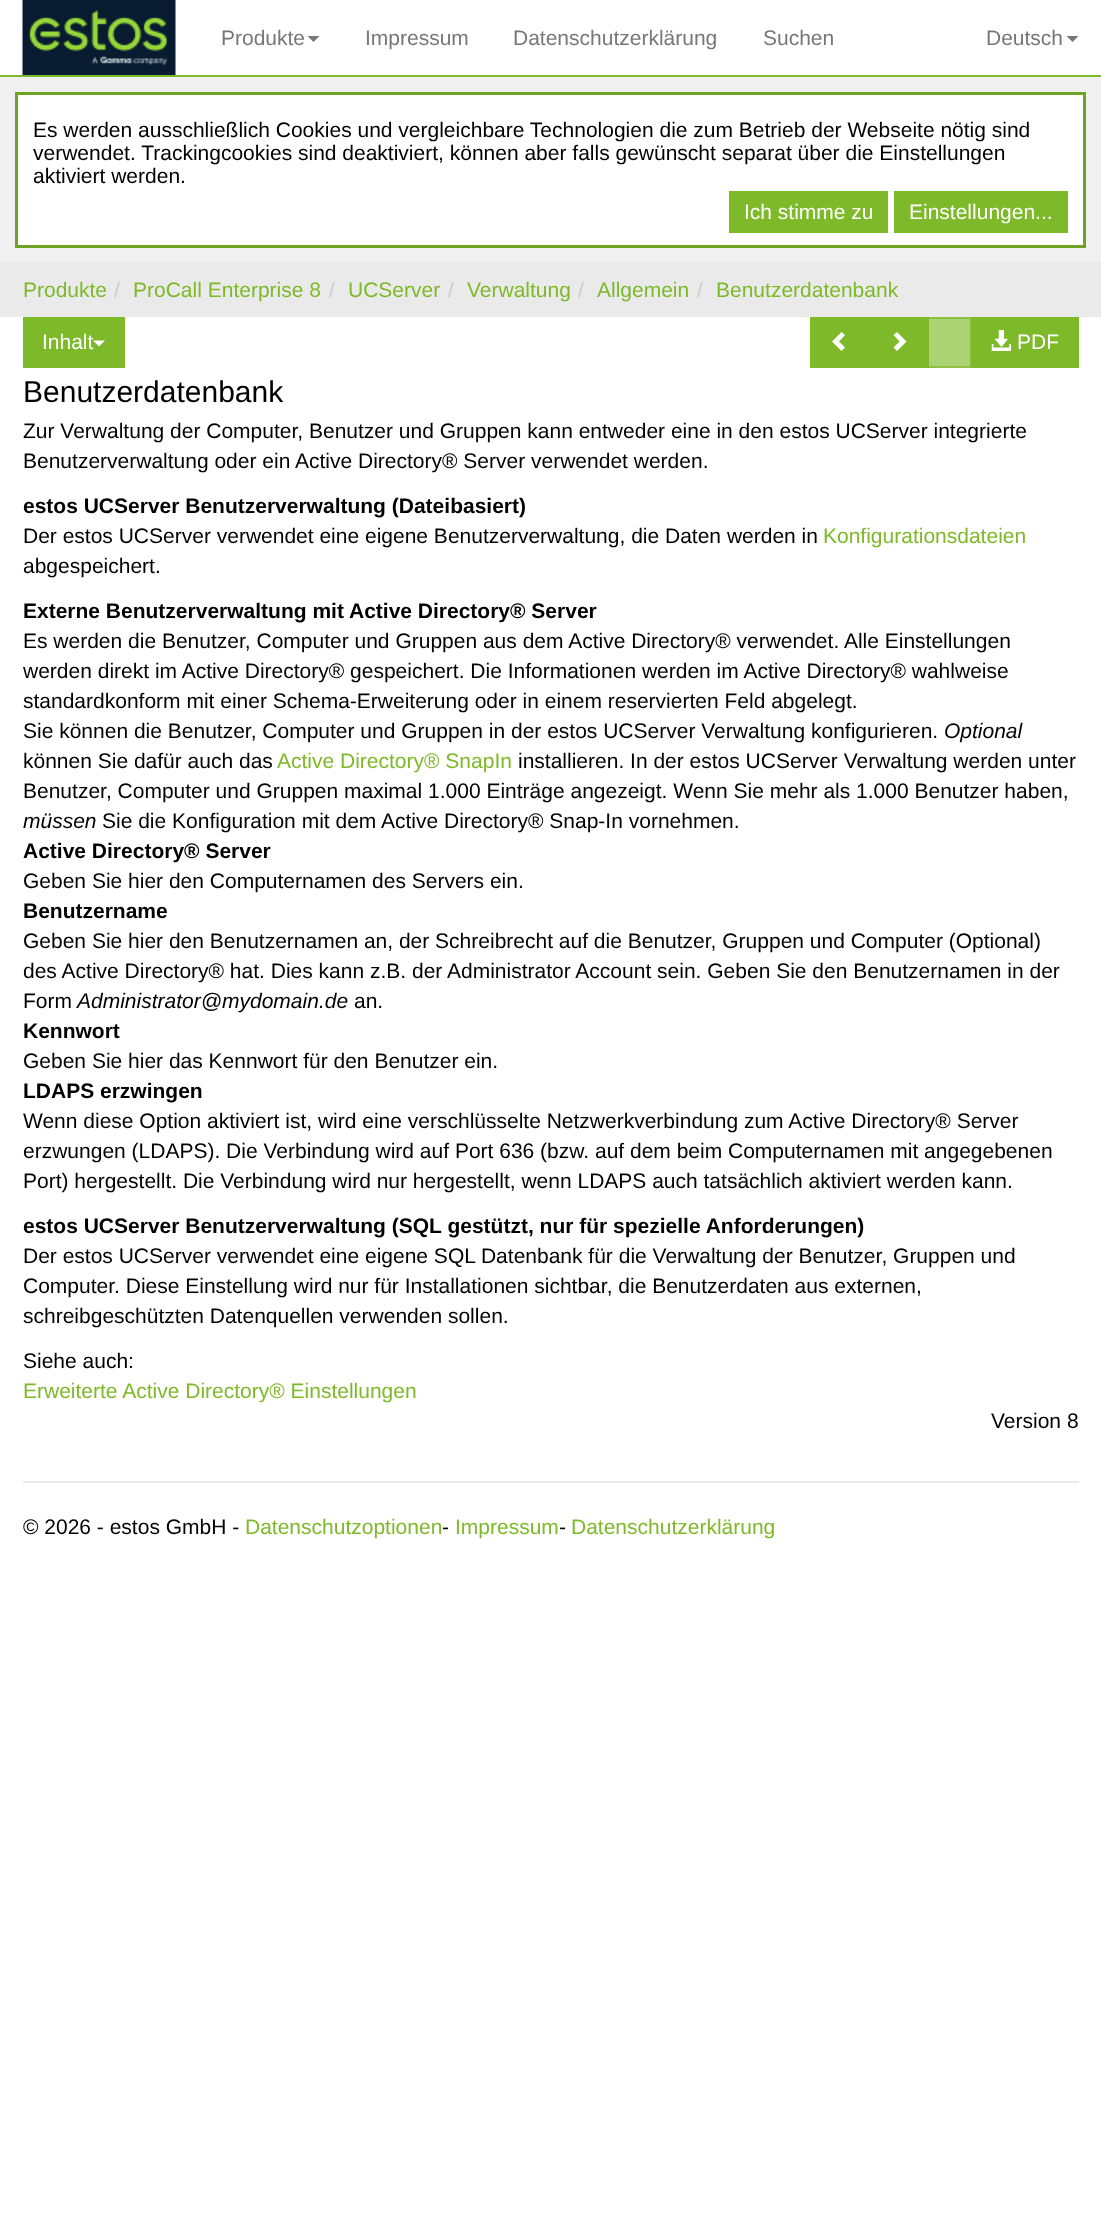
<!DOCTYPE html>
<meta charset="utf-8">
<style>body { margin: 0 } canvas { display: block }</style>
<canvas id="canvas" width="1101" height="2225"></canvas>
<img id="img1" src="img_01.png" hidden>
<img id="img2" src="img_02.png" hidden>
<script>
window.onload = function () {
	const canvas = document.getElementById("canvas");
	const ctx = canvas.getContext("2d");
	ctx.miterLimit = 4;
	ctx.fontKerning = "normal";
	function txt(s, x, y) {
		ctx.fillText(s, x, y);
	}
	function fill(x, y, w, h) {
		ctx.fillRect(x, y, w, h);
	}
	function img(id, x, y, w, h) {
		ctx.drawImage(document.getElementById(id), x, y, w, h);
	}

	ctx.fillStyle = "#FFFFFF";
	fill(0, 0, 1101, 2225);
	ctx.fillStyle = "#ABD273";
	fill(929, 317, 42, 51);
	ctx.fillStyle = "#7DB928";
	fill(0, 75, 1101, 2);
	img("img1", 22, 0, 154, 75);
	ctx.fillStyle = "#777777";
	ctx.beginPath();
	ctx.moveTo(307.5, 36);
	ctx.lineTo(319.5, 36);
	ctx.lineTo(313.5, 42);
	ctx.closePath();
	ctx.fill();
	ctx.beginPath();
	ctx.moveTo(1066.5, 36);
	ctx.lineTo(1078.5, 36);
	ctx.lineTo(1072.5, 42);
	ctx.closePath();
	ctx.fill();
	ctx.fillStyle = "#F1F0F0";
	fill(0, 77, 1101, 186);
	ctx.fillStyle = "#FFFFFF";
	ctx.beginPath();
	ctx.rect(16.5, 93.5, 1068, 153);
	ctx.fill();
	ctx.strokeStyle = "#6FA423";
	ctx.lineWidth = 3;
	ctx.stroke();
	ctx.fillStyle = "#7DB928";
	fill(729, 191, 159, 42);
	fill(894, 191, 174, 42);
	ctx.fillStyle = "#EAEAEA";
	fill(0, 263, 1101, 54);
	ctx.fillStyle = "#7DB928";
	fill(23, 317, 102, 51);
	ctx.fillStyle = "#FFFFFF";
	ctx.beginPath();
	ctx.moveTo(93, 340.5);
	ctx.lineTo(105, 340.5);
	ctx.lineTo(99, 346.5);
	ctx.closePath();
	ctx.fill();
	ctx.fillStyle = "#7DB928";
	fill(810, 317, 119, 51);
	ctx.fillStyle = "#FFFFFF";
	ctx.beginPath();
	ctx.moveTo(845, 335);
	ctx.lineTo(839, 341.5);
	ctx.lineTo(845, 347.5);
	ctx.lineTo(841.5, 351);
	ctx.lineTo(832, 341.5);
	ctx.lineTo(841.5, 332);
	ctx.closePath();
	ctx.fill();
	ctx.strokeStyle = "rgba(125, 185, 40, 0.65)";
	ctx.lineWidth = 2;
	ctx.strokeRect(928, 318, 43, 49);
	ctx.beginPath();
	ctx.moveTo(906.5, 341.5);
	ctx.lineTo(897, 351);
	ctx.lineTo(893.5, 347.5);
	ctx.lineTo(899.5, 341.5);
	ctx.lineTo(893.5, 335);
	ctx.lineTo(897, 332);
	ctx.closePath();
	ctx.fill();
	ctx.fillStyle = "#7DB928";
	fill(971, 317, 108, 51);
	img("img2", 991, 330, 20, 21);
	ctx.fillStyle = "#EAEAEA";
	fill(23, 1481, 1056, 2);
	ctx.font = "21px Liberation Sans";
	ctx.fillStyle = "#777777";
	txt("Produkte", 221, 45);
	txt("Impressum", 365, 45);
	txt("Datenschutzerklärung", 513, 45);
	txt("Suchen", 763, 45);
	txt("Deutsch", 986, 45);
	ctx.fillStyle = "#000000";
	txt("Es werden ausschließlich Cookies und vergleichbare Technologien die zum Betrieb der Webseite nötig sind", 33, 137);
	txt("verwendet. Trackingcookies sind deaktiviert, können aber falls gewünscht separat über die Einstellungen", 33, 160);
	txt("aktiviert werden.", 33, 183);
	ctx.fillStyle = "#FFFFFF";
	txt("Ich stimme zu", 744, 219);
	txt("Einstellungen...", 909, 219);
	ctx.fillStyle = "#7DB928";
	txt("Produkte", 23, 297);
	ctx.fillStyle = "#CCCCCC";
	txt("/", 114, 297);
	ctx.fillStyle = "#7DB928";
	txt("ProCall Enterprise 8", 133, 297);
	ctx.fillStyle = "#CCCCCC";
	txt("/", 329, 297);
	ctx.fillStyle = "#7DB928";
	txt("UCServer", 348, 297);
	ctx.fillStyle = "#CCCCCC";
	txt("/", 448, 297);
	ctx.fillStyle = "#7DB928";
	txt("Verwaltung", 467, 297);
	ctx.fillStyle = "#CCCCCC";
	txt("/", 578, 297);
	ctx.fillStyle = "#7DB928";
	txt("Allgemein", 597, 297);
	ctx.fillStyle = "#CCCCCC";
	txt("/", 697, 297);
	ctx.fillStyle = "#7DB928";
	txt("Benutzerdatenbank", 716, 297);
	ctx.fillStyle = "#FFFFFF";
	txt("Inhalt", 42, 349);
	txt("PDF", 1017, 349);
	ctx.font = "30px Liberation Sans";
	ctx.fillStyle = "#000000";
	txt("Benutzerdatenbank", 23, 402);
	ctx.font = "21px Liberation Sans";
	txt("Zur Verwaltung der Computer, Benutzer und Gruppen kann entweder eine in den estos UCServer integrierte", 23, 438);
	txt("Benutzerverwaltung oder ein Active Directory® Server verwendet werden.", 23, 468);
	ctx.font = "bold 21px Liberation Sans";
	txt("estos UCServer Benutzerverwaltung (Dateibasiert)", 23, 513);
	ctx.font = "21px Liberation Sans";
	txt("Der estos UCServer verwendet eine eigene Benutzerverwaltung, die Daten werden in", 23, 543);
	ctx.fillStyle = "#7DB928";
	txt("Konfigurationsdateien", 823, 543);
	ctx.fillStyle = "#000000";
	txt("abgespeichert.", 23, 573);
	ctx.font = "bold 21px Liberation Sans";
	txt("Externe Benutzerverwaltung mit Active Directory® Server", 23, 618);
	ctx.font = "21px Liberation Sans";
	txt("Es werden die Benutzer, Computer und Gruppen aus dem Active Directory® verwendet. Alle Einstellungen", 23, 648);
	txt("werden direkt im Active Directory® gespeichert. Die Informationen werden im Active Directory® wahlweise", 23, 678);
	txt("standardkonform mit einer Schema-Erweiterung oder in einem reservierten Feld abgelegt.", 23, 708);
	txt("Sie können die Benutzer, Computer und Gruppen in der estos UCServer Verwaltung konfigurieren.", 23, 738);
	ctx.font = "italic 21px Liberation Sans";
	txt("Optional", 944, 738);
	ctx.font = "21px Liberation Sans";
	txt("können Sie dafür auch das", 23, 768);
	ctx.fillStyle = "#7DB928";
	txt("Active Directory® SnapIn", 277, 768);
	ctx.fillStyle = "#000000";
	txt("installieren. In der estos UCServer Verwaltung werden unter", 518, 768);
	txt("Benutzer, Computer und Gruppen maximal 1.000 Einträge angezeigt. Wenn Sie mehr als 1.000 Benutzer haben,", 23, 798);
	ctx.font = "italic 21px Liberation Sans";
	txt("müssen", 23, 828);
	ctx.font = "21px Liberation Sans";
	txt("Sie die Konfiguration mit dem Active Directory® Snap-In vornehmen.", 102, 828);
	ctx.font = "bold 21px Liberation Sans";
	txt("Active Directory® Server", 23, 858);
	ctx.font = "21px Liberation Sans";
	txt("Geben Sie hier den Computernamen des Servers ein.", 23, 888);
	ctx.font = "bold 21px Liberation Sans";
	txt("Benutzername", 23, 918);
	ctx.font = "21px Liberation Sans";
	txt("Geben Sie hier den Benutzernamen an, der Schreibrecht auf die Benutzer, Gruppen und Computer (Optional)", 23, 948);
	txt("des Active Directory® hat. Dies kann z.B. der Administrator Account sein. Geben Sie den Benutzernamen in der", 23, 978);
	txt("Form", 23, 1008);
	ctx.font = "italic 21px Liberation Sans";
	txt("Administrator@mydomain.de", 77, 1008);
	ctx.font = "21px Liberation Sans";
	txt("an.", 354, 1008);
	ctx.font = "bold 21px Liberation Sans";
	txt("Kennwort", 23, 1038);
	ctx.font = "21px Liberation Sans";
	txt("Geben Sie hier das Kennwort für den Benutzer ein.", 23, 1068);
	ctx.font = "bold 21px Liberation Sans";
	txt("LDAPS erzwingen", 23, 1098);
	ctx.font = "21px Liberation Sans";
	txt("Wenn diese Option aktiviert ist, wird eine verschlüsselte Netzwerkverbindung zum Active Directory® Server", 23, 1128);
	txt("erzwungen (LDAPS). Die Verbindung wird auf Port 636 (bzw. auf dem beim Computernamen mit angegebenen", 23, 1158);
	txt("Port) hergestellt. Die Verbindung wird nur hergestellt, wenn LDAPS auch tatsächlich aktiviert werden kann.", 23, 1188);
	ctx.font = "bold 21px Liberation Sans";
	txt("estos UCServer Benutzerverwaltung (SQL gestützt, nur für spezielle Anforderungen)", 23, 1233);
	ctx.font = "21px Liberation Sans";
	txt("Der estos UCServer verwendet eine eigene SQL Datenbank für die Verwaltung der Benutzer, Gruppen und", 23, 1263);
	txt("Computer. Diese Einstellung wird nur für Installationen sichtbar, die Benutzerdaten aus externen,", 23, 1293);
	txt("schreibgeschützten Datenquellen verwenden sollen.", 23, 1323);
	txt("Siehe auch:", 23, 1368);
	ctx.fillStyle = "#7DB928";
	txt("Erweiterte Active Directory® Einstellungen", 23, 1398);
	ctx.fillStyle = "#000000";
	txt("Version 8", 991, 1428);
	txt("© 2026 - estos GmbH -", 23, 1534);
	ctx.fillStyle = "#7DB928";
	txt("Datenschutzoptionen", 245, 1534);
	ctx.fillStyle = "#000000";
	txt("-", 442, 1534);
	ctx.fillStyle = "#7DB928";
	txt("Impressum", 455, 1534);
	ctx.fillStyle = "#000000";
	txt("-", 559, 1534);
	ctx.fillStyle = "#7DB928";
	txt("Datenschutzerklärung", 571, 1534);
};
</script>
